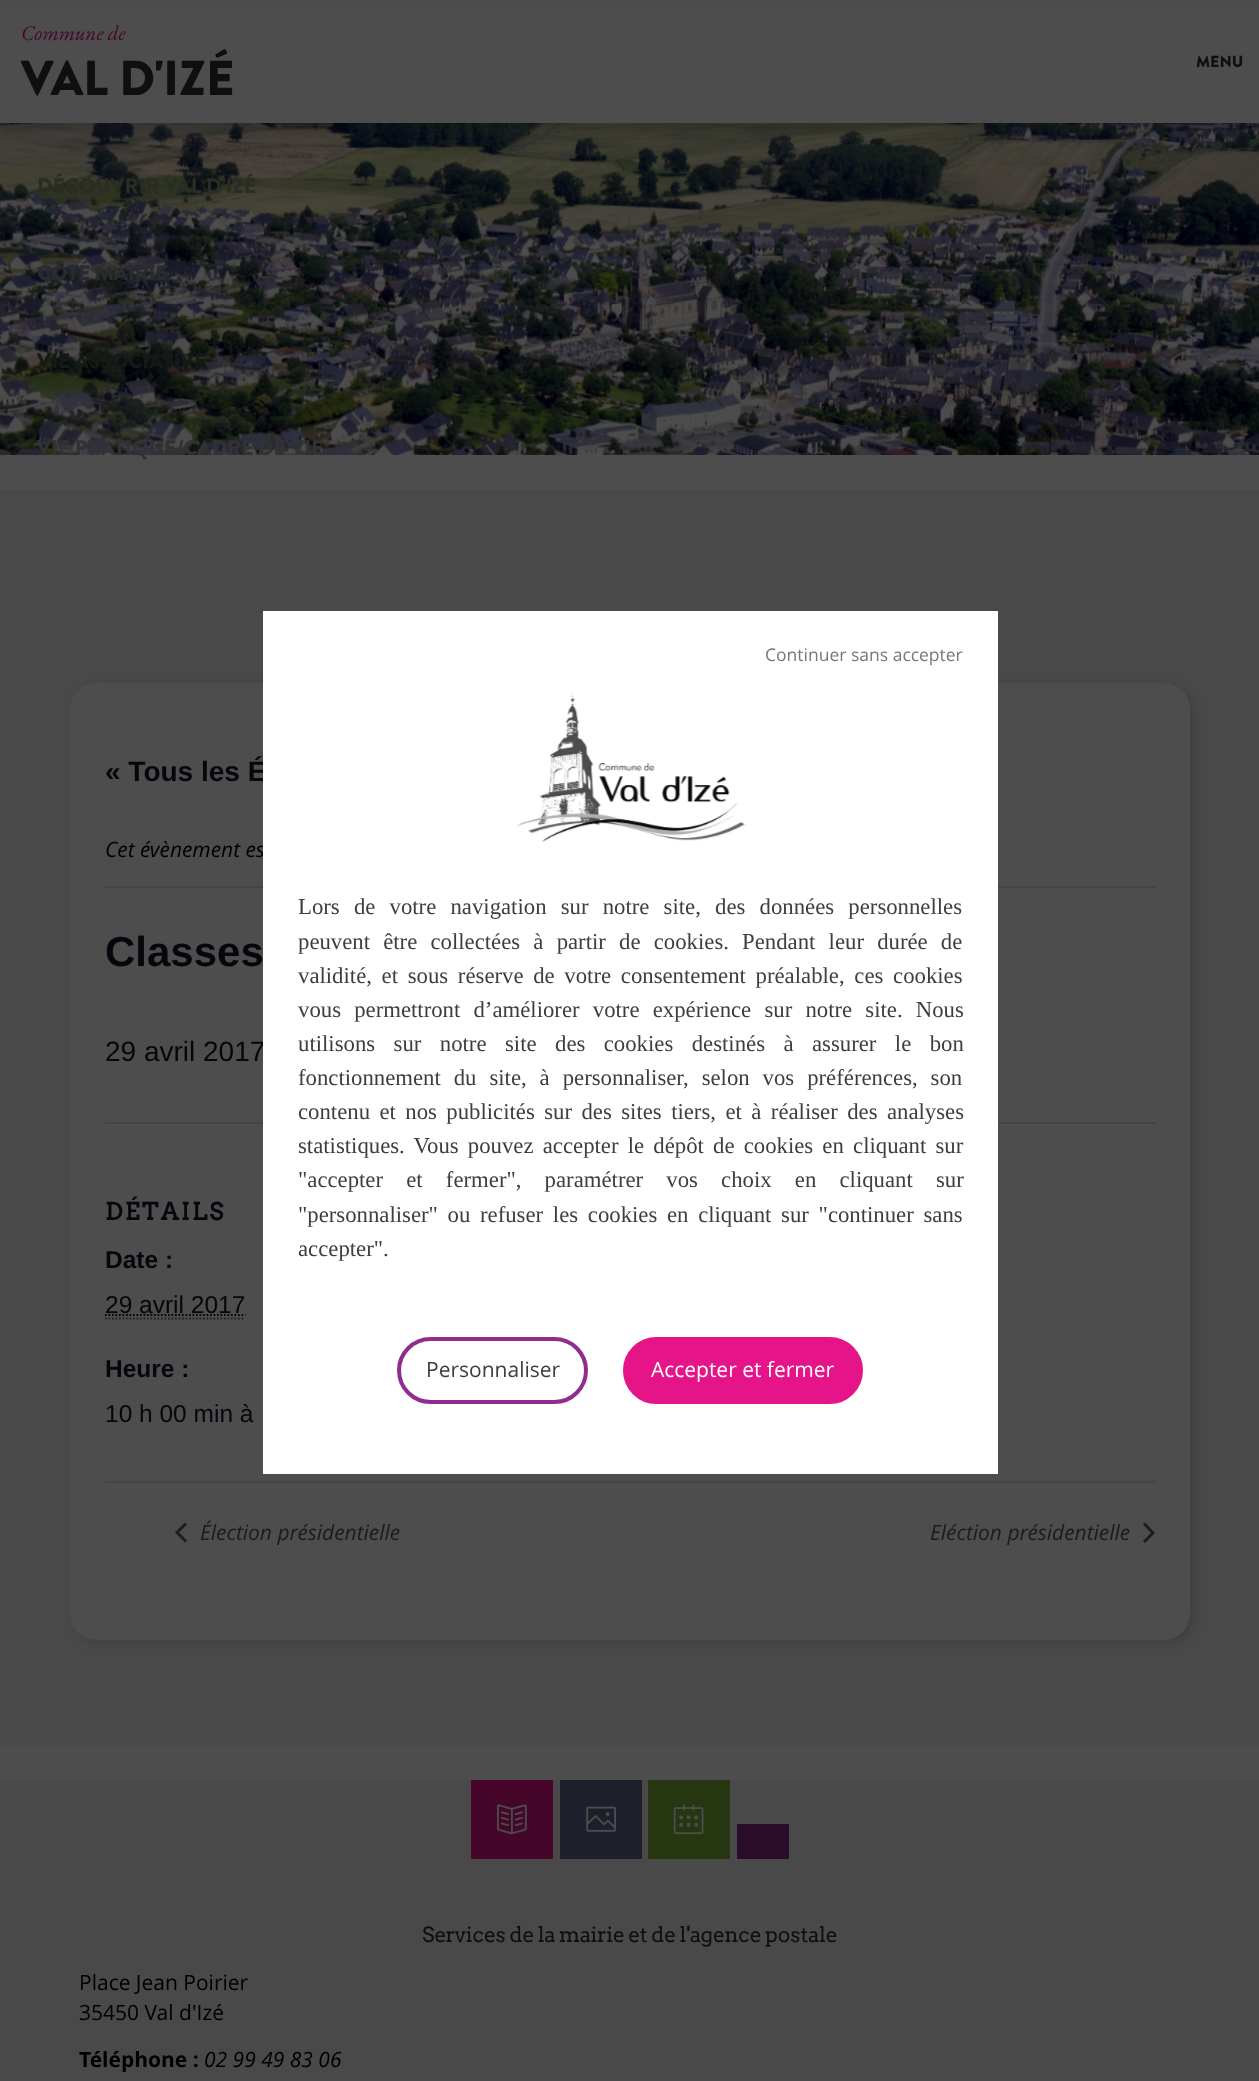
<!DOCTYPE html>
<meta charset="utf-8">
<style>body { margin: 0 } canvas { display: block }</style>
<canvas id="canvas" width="1259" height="2081"></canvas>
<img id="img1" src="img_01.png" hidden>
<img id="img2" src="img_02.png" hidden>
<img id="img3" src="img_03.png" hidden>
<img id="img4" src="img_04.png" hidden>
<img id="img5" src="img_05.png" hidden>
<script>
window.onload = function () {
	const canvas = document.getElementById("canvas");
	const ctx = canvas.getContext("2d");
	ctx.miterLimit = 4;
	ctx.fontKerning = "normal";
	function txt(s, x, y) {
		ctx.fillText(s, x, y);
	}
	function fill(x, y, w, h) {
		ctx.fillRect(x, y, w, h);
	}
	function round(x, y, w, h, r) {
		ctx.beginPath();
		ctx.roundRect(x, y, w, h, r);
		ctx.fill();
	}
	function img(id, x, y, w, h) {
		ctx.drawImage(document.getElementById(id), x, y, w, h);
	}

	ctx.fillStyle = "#4D4D4D";
	fill(0, 0, 1259, 2081);
	img("img1", 0, 123, 1259, 332);
	ctx.fillStyle = "rgba(0, 0, 0, 0.15)";
	ctx.filter = "blur(4.5px)";
	ctx.beginPath();
	ctx.rect(0, 9, 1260, 122);
	ctx.fill();
	ctx.filter = "none";
	ctx.fillStyle = "#4D4D4D";
	fill(0, 6, 1259, 117);
	ctx.fillStyle = "#494949";
	fill(0, 490, 1259, 1255);
	ctx.fillStyle = "rgba(0, 0, 0, 0.15)";
	ctx.filter = "blur(4.5px)";
	ctx.beginPath();
	ctx.roundRect(74, 686, 1120, 957, 26);
	ctx.fill();
	ctx.filter = "none";
	ctx.fillStyle = "#4D4D4D";
	round(70, 683, 1120, 957, 26);
	ctx.fillStyle = "#444444";
	fill(105, 886, 1050, 2);
	fill(105, 1122, 1050, 2);
	ctx.beginPath();
	ctx.moveTo(105, 1318.5);
	ctx.lineTo(245, 1318.5);
	ctx.strokeStyle = "#242424";
	ctx.lineWidth = 1.8;
	ctx.setLineDash([1.75, 1.75]);
	ctx.stroke();
	ctx.beginPath();
	ctx.moveTo(105, 1315);
	ctx.lineTo(245.5, 1315);
	ctx.strokeStyle = "#06070C";
	ctx.stroke();
	fill(105, 1481, 1050, 2);
	ctx.fillStyle = "#1C1C1C";
	ctx.beginPath();
	ctx.moveTo(187, 1540.5);
	ctx.lineTo(185, 1542.5);
	ctx.lineTo(175, 1532.5);
	ctx.lineTo(185, 1522.5);
	ctx.lineTo(187, 1524.5);
	ctx.lineTo(179, 1532.5);
	ctx.closePath();
	ctx.fill();
	ctx.beginPath();
	ctx.moveTo(1143, 1524.5);
	ctx.lineTo(1145, 1522.5);
	ctx.lineTo(1155, 1533);
	ctx.lineTo(1145, 1543);
	ctx.lineTo(1143, 1541);
	ctx.lineTo(1151, 1533);
	ctx.closePath();
	ctx.fill();
	ctx.fillStyle = "#494949";
	fill(0, 1780, 1259, 301);
	ctx.fillStyle = "#450629";
	fill(471, 1780, 82, 79);
	img("img2", 497, 1804, 30, 31);
	ctx.fillStyle = "#1D202A";
	fill(560, 1780, 82, 79);
	img("img3", 586, 1806, 30, 26);
	ctx.fillStyle = "#253610";
	fill(648, 1780, 82, 79);
	img("img4", 673, 1804, 31, 31);
	ctx.fillStyle = "#2B0D2B";
	fill(737, 1824, 52, 35);
	ctx.font = "italic 21px EB Garamond";
	ctx.fillStyle = "#450629";
	txt("Commune de", 21, 40);
	ctx.font = "900 49px Brandon Grotesque";
	ctx.fillStyle = "#0F0F0F";
	txt("VAL D'IZÉ", 21, 95);
	ctx.font = "900 16px Brandon Grotesque";
	txt("MENU", 1196, 67);
	ctx.font = "900 21px Brandon Grotesque";
	ctx.fillStyle = "#292D23";
	txt("DÉCOUVRIR VAL D’IZÉ", 37, 193);
	ctx.fillStyle = "#2A2B2F";
	txt("CÔTÉ MAIRIE", 37, 280);
	ctx.fillStyle = "#161A17";
	txt("VIE ASSOCIATIVE", 37, 368);
	ctx.fillStyle = "#323235";
	txt("VIE PRATIQUE/CADRE DE VIE", 37, 455);
	ctx.font = "bold 28px Liberation Sans";
	ctx.fillStyle = "#06070C";
	txt("« Tous les É", 105, 781);
	ctx.font = "italic 21px Open Sans";
	ctx.fillStyle = "#000000";
	txt("Cet évènement es", 105, 857);
	ctx.font = "bold 42px Liberation Sans";
	ctx.fillStyle = "#06070C";
	txt("Classes", 105, 966);
	ctx.font = "28px Liberation Sans";
	txt("29 avril 2017", 105, 1061);
	ctx.letterSpacing = "1.75px";
	ctx.font = "bold 24.5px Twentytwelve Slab";
	txt("DÉTAILS", 105, 1220);
	ctx.letterSpacing = "0px";
	ctx.font = "bold 24.5px Liberation Sans";
	txt("Date :", 105, 1268);
	ctx.font = "24.5px Liberation Sans";
	txt("29 avril 2017", 105, 1313);
	ctx.font = "bold 24.5px Liberation Sans";
	txt("Heure :", 105, 1377);
	ctx.font = "24.5px Liberation Sans";
	txt("10 h 00 min à", 105, 1422);
	ctx.font = "italic 21px Open Sans";
	ctx.fillStyle = "#1C1C1C";
	txt("Élection présidentielle", 200, 1540);
	txt("Eléction présidentielle", 930, 1540);
	ctx.font = "21px Twentytwelve Slab";
	ctx.fillStyle = "#0F0F0F";
	txt("Services de la mairie et de l'agence postale", 422, 1942);
	ctx.font = "21px Open Sans";
	ctx.fillStyle = "#000000";
	txt("Place Jean Poirier", 79, 1990);
	txt("35450 Val d'Izé", 79, 2020);
	ctx.font = "bold 21px Open Sans";
	txt("Téléphone :", 79, 2067);
	ctx.font = "italic 21px Open Sans";
	txt("02 99 49 83 06", 204, 2067);
	ctx.fillStyle = "#FFFFFF";
	fill(263, 611, 735, 863);
	ctx.font = "17.5px Open Sans";
	ctx.fillStyle = "#787878";
	txt("Continuer sans accepter", 765, 661);
	img("img5", 516, 693, 230, 149);
	ctx.wordSpacing = "8.5px";
	ctx.font = "22.75px Liberation Serif";
	ctx.fillStyle = "#3E3E3E";
	txt("Lors de votre navigation sur notre site, des données personnelles", 298, 914);
	ctx.wordSpacing = "7.5px";
	txt("peuvent être collectées à partir de cookies. Pendant leur durée de", 298, 949);
	ctx.wordSpacing = "4px";
	txt("validité, et sous réserve de votre consentement préalable, ces cookies", 298, 983);
	ctx.wordSpacing = "7.5px";
	txt("vous permettront d’améliorer votre expérience sur notre site. Nous", 298, 1017);
	ctx.wordSpacing = "12.75px";
	txt("utilisons sur notre site des cookies destinés à assurer le bon", 298, 1051);
	ctx.wordSpacing = "7.25px";
	txt("fonctionnement du site, à personnaliser, selon vos préférences, son", 298, 1085);
	ctx.wordSpacing = "3.75px";
	txt("contenu et nos publicités sur des sites tiers, et à réaliser des analyses", 298, 1119);
	ctx.wordSpacing = "3.5px";
	txt("statistiques. Vous pouvez accepter le dépôt de cookies en cliquant sur", 298, 1153);
	ctx.wordSpacing = "17.5px";
	txt("\"accepter et fermer\", paramétrer vos choix en cliquant sur", 298, 1187);
	ctx.wordSpacing = "4px";
	txt("\"personnaliser\" ou refuser les cookies en cliquant sur \"continuer sans", 298, 1222);
	ctx.wordSpacing = "0px";
	txt("accepter\".", 298, 1256);
	ctx.beginPath();
	ctx.roundRect(399, 1339, 187, 63, 31.5);
	ctx.strokeStyle = "#902C8E";
	ctx.lineWidth = 4;
	ctx.setLineDash([]);
	ctx.stroke();
	ctx.font = "21px Open Sans";
	txt("Personnaliser", 426, 1377);
	ctx.fillStyle = "#E51489";
	ctx.beginPath();
	ctx.roundRect(625, 1339, 236, 63, 31.5);
	ctx.fill();
	ctx.strokeStyle = "#E51489";
	ctx.stroke();
	ctx.fillStyle = "#FFFFFF";
	txt("Accepter et fermer", 651, 1377);
};
</script>
